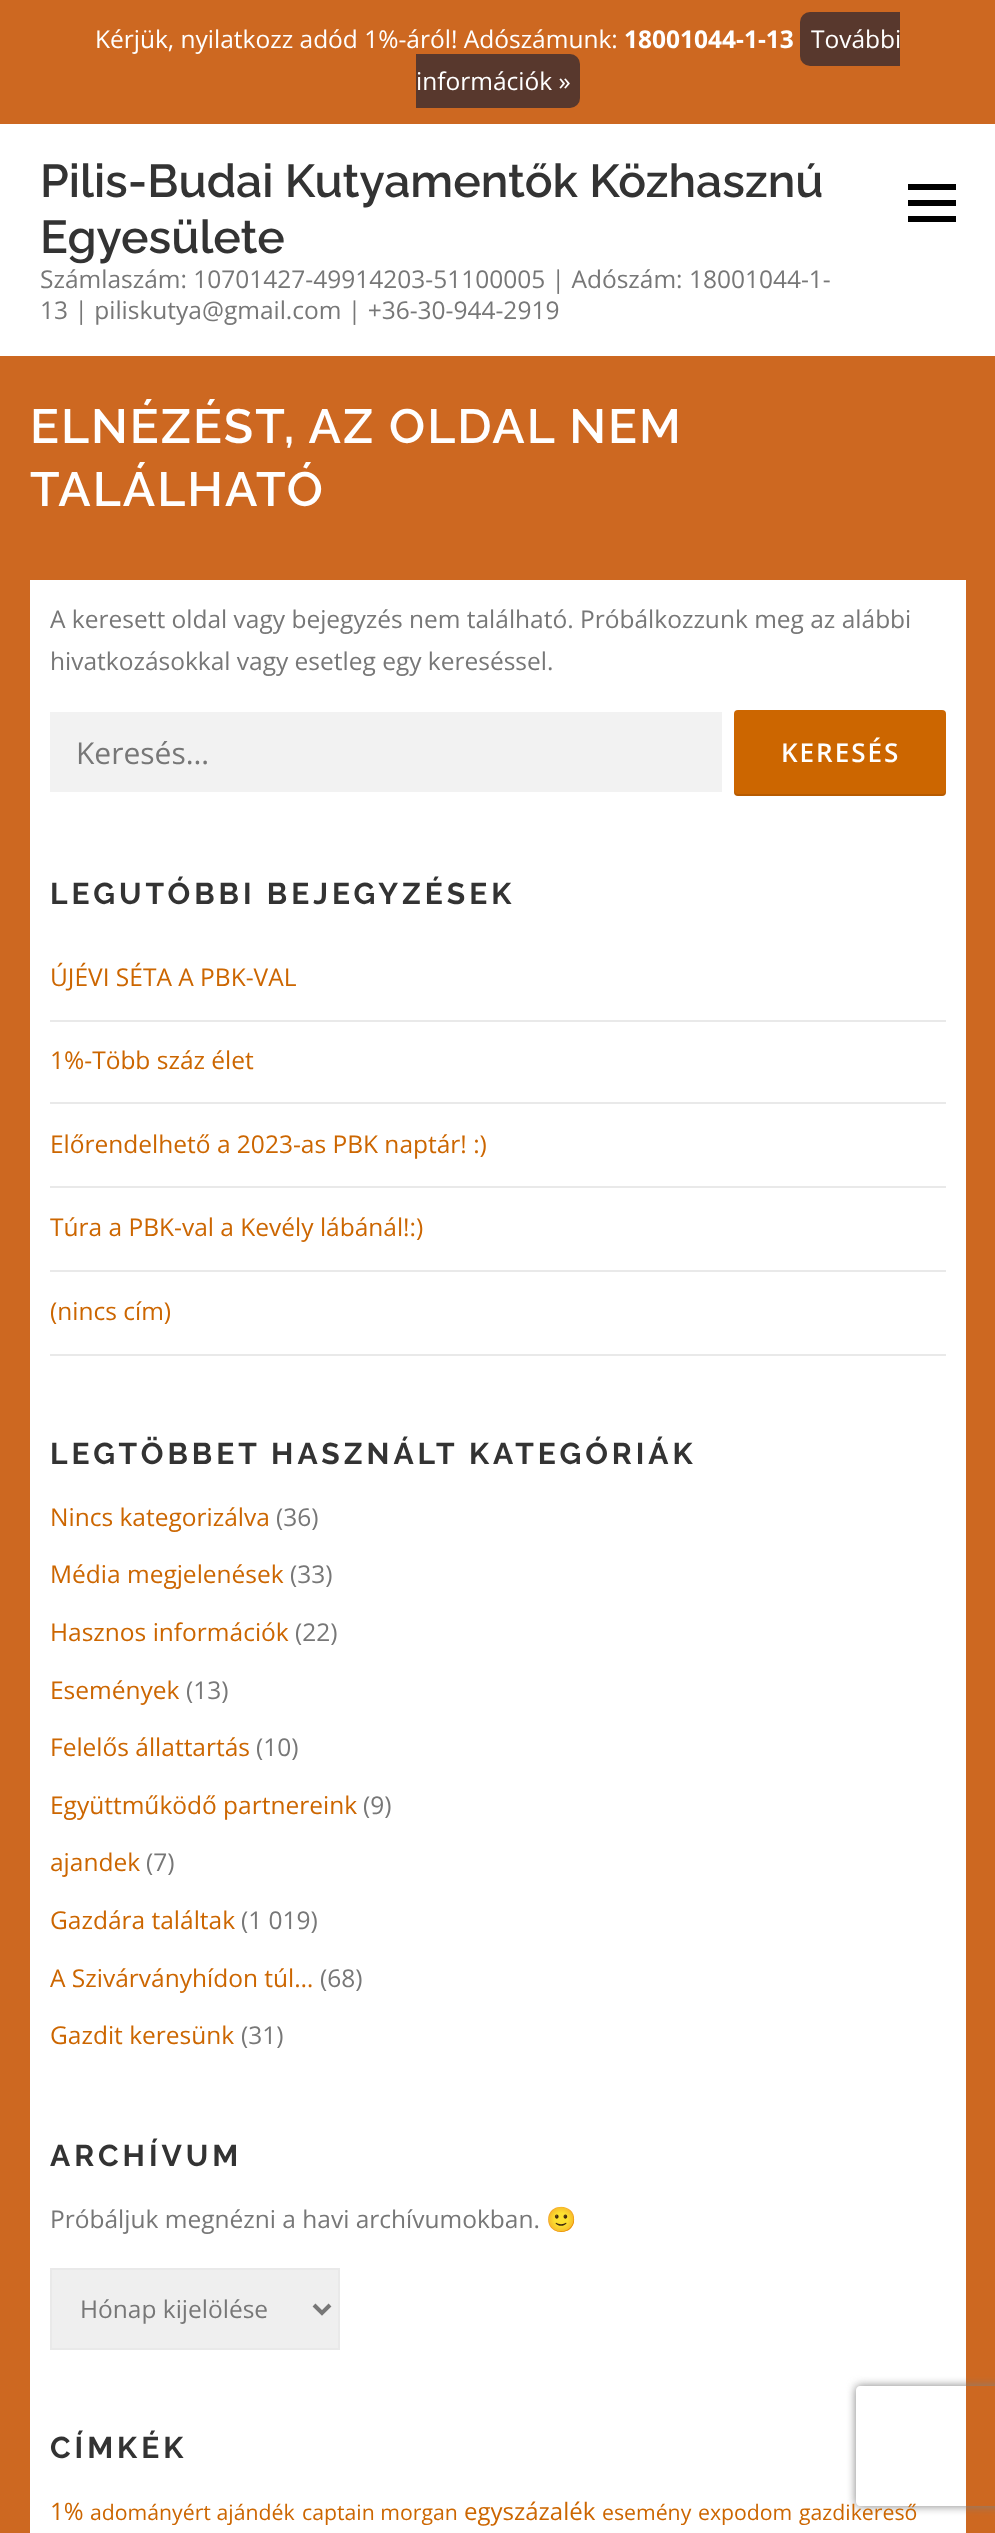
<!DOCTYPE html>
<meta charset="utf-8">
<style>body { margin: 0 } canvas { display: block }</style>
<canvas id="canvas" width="995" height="2533"></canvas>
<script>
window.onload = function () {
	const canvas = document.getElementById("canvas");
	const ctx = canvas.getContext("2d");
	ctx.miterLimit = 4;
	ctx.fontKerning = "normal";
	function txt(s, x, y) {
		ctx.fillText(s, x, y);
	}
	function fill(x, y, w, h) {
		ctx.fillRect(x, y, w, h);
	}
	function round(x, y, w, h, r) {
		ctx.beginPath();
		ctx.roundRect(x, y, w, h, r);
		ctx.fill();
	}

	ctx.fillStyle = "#CD6821";
	fill(0, 0, 995, 2533);
	ctx.fillStyle = "#58382D";
	ctx.beginPath();
	ctx.roundRect(800, 12, 100, 54, [10, 0, 0, 10]);
	ctx.fill();
	ctx.beginPath();
	ctx.roundRect(416, 54, 164, 54, [0, 10, 10, 0]);
	ctx.fill();
	ctx.fillStyle = "#FFFFFF";
	fill(0, 124, 995, 232);
	ctx.fillStyle = "#000000";
	fill(908, 200, 48, 6);
	fill(908, 184, 48, 6);
	fill(908, 216, 48, 6);
	ctx.fillStyle = "#FFFFFF";
	fill(30, 580, 936, 1953);
	ctx.fillStyle = "#F2F2F2";
	fill(50, 712, 672, 80);
	ctx.fillStyle = "#CC6600";
	round(734, 710, 212, 86, 4);
	ctx.fillStyle = "rgba(0, 0, 0, 0.1)";
	ctx.beginPath();
	ctx.moveTo(734, 790);
	ctx.bezierCurveTo(734, 793, 734, 795, 737, 796);
	ctx.lineTo(943, 796);
	ctx.bezierCurveTo(946, 795, 946, 793, 946, 790);
	ctx.bezierCurveTo(946, 792, 944, 794, 942, 794);
	ctx.lineTo(738, 794);
	ctx.bezierCurveTo(736, 794, 734, 792, 734, 790);
	ctx.closePath();
	ctx.fill();
	ctx.fillStyle = "#E9E9E9";
	fill(50, 1020, 896, 2);
	fill(50, 1102, 896, 2);
	fill(50, 1186, 896, 2);
	fill(50, 1270, 896, 2);
	fill(50, 1354, 896, 2);
	ctx.fillStyle = "#EFEFEF";
	ctx.beginPath();
	ctx.rect(51, 2269, 288, 80);
	ctx.fill();
	ctx.strokeStyle = "#E9E9E9";
	ctx.lineWidth = 2;
	ctx.stroke();
	ctx.beginPath();
	ctx.moveTo(314, 2305);
	ctx.lineTo(322, 2313);
	ctx.lineTo(330, 2305);
	ctx.strokeStyle = "#777777";
	ctx.lineWidth = 4;
	ctx.stroke();
	ctx.save();
	ctx.beginPath();
	ctx.moveTo(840, 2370);
	ctx.lineTo(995, 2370);
	ctx.lineTo(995, 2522);
	ctx.lineTo(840, 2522);
	ctx.closePath();
	ctx.moveTo(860, 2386);
	ctx.lineTo(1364, 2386);
	ctx.bezierCurveTo(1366, 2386, 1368, 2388, 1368, 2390);
	ctx.lineTo(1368, 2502);
	ctx.bezierCurveTo(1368, 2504, 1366, 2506, 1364, 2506);
	ctx.lineTo(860, 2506);
	ctx.bezierCurveTo(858, 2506, 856, 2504, 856, 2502);
	ctx.lineTo(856, 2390);
	ctx.bezierCurveTo(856, 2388, 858, 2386, 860, 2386);
	ctx.closePath();
	ctx.clip("evenodd");
	ctx.fillStyle = "#808080";
	ctx.filter = "blur(5px)";
	ctx.beginPath();
	ctx.roundRect(856, 2386, 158, 120, 4);
	ctx.fill();
	ctx.filter = "none";
	ctx.restore();
	ctx.font = "24.5px Open Sans";
	ctx.fillStyle = "#FFFFFF";
	txt("Kérjük, nyilatkozz adód 1%-áról! Adószámunk:", 95, 48);
	ctx.font = "bold 24.5px Open Sans";
	txt("18001044-1-13", 624, 48);
	ctx.font = "24.5px Open Sans";
	txt("További", 811, 48);
	txt("információk »", 416, 90);
	ctx.font = "600 46.25px Raleway";
	ctx.fillStyle = "#333333";
	txt("Pilis-Budai Kutyamentők Közhasznú", 40, 197);
	txt("Egyesülete", 40, 253);
	ctx.font = "24.5px Open Sans";
	ctx.fillStyle = "#777777";
	txt("Számlaszám: 10701427-49914203-51100005 | Adószám: 18001044-1-", 40, 288);
	txt("13 | piliskutya@gmail.com | +36-30-944-2919", 40, 319);
	ctx.letterSpacing = "2px";
	ctx.font = "600 48px Raleway";
	ctx.fillStyle = "#FFFFFF";
	txt("ELNÉZÉST, AZ OLDAL NEM", 30, 443);
	txt("TALÁLHATÓ", 30, 506);
	ctx.letterSpacing = "0px";
	ctx.font = "24.5px Open Sans";
	ctx.fillStyle = "#777777";
	txt("A keresett oldal vagy bejegyzés nem található. Próbálkozzunk meg az alábbi", 50, 628);
	txt("hivatkozásokkal vagy esetleg egy kereséssel.", 50, 670);
	ctx.font = "30px Open Sans";
	txt("Keresés…", 76, 764);
	ctx.letterSpacing = "2px";
	ctx.font = "600 26px Open Sans";
	ctx.fillStyle = "#FFFFFF";
	txt("KERESÉS", 781, 762);
	ctx.letterSpacing = "4px";
	ctx.font = "bold 30px Raleway";
	ctx.fillStyle = "#333333";
	txt("LEGUTÓBBI BEJEGYZÉSEK", 50, 904);
	ctx.letterSpacing = "0px";
	ctx.font = "24.5px Open Sans";
	ctx.fillStyle = "#CC6600";
	txt("ÚJÉVI SÉTA A PBK-VAL", 50, 986);
	txt("1%-Több száz élet", 50, 1069);
	txt("Előrendelhető a 2023-as PBK naptár! :)", 50, 1153);
	txt("Túra a PBK-val a Kevély lábánál!:)", 50, 1236);
	txt("(nincs cím)", 50, 1320);
	ctx.letterSpacing = "4px";
	ctx.font = "bold 30px Raleway";
	ctx.fillStyle = "#333333";
	txt("LEGTÖBBET HASZNÁLT KATEGÓRIÁK", 50, 1464);
	ctx.letterSpacing = "0px";
	ctx.font = "24.5px Open Sans";
	ctx.fillStyle = "#CC6600";
	txt("Nincs kategorizálva", 50, 1526);
	ctx.fillStyle = "#777777";
	txt("(36)", 276, 1526);
	ctx.fillStyle = "#CC6600";
	txt("Média megjelenések", 50, 1583);
	ctx.fillStyle = "#777777";
	txt("(33)", 290, 1583);
	ctx.fillStyle = "#CC6600";
	txt("Hasznos információk", 50, 1641);
	ctx.fillStyle = "#777777";
	txt("(22)", 295, 1641);
	ctx.fillStyle = "#CC6600";
	txt("Események", 50, 1699);
	ctx.fillStyle = "#777777";
	txt("(13)", 186, 1699);
	ctx.fillStyle = "#CC6600";
	txt("Felelős állattartás", 50, 1756);
	ctx.fillStyle = "#777777";
	txt("(10)", 256, 1756);
	ctx.fillStyle = "#CC6600";
	txt("Együttműködő partnereink", 50, 1814);
	ctx.fillStyle = "#777777";
	txt("(9)", 363, 1814);
	ctx.fillStyle = "#CC6600";
	txt("ajandek", 50, 1871);
	ctx.fillStyle = "#777777";
	txt("(7)", 146, 1871);
	ctx.fillStyle = "#CC6600";
	txt("Gazdára találtak", 50, 1929);
	ctx.fillStyle = "#777777";
	txt("(1 019)", 241, 1929);
	ctx.fillStyle = "#CC6600";
	txt("A Szivárványhídon túl…", 50, 1987);
	ctx.fillStyle = "#777777";
	txt("(68)", 320, 1987);
	ctx.fillStyle = "#CC6600";
	txt("Gazdit keresünk", 50, 2044);
	ctx.fillStyle = "#777777";
	txt("(31)", 241, 2044);
	ctx.letterSpacing = "4px";
	ctx.font = "bold 30px Raleway";
	ctx.fillStyle = "#333333";
	txt("ARCHÍVUM", 50, 2166);
	ctx.letterSpacing = "0px";
	ctx.font = "24.5px Open Sans";
	ctx.fillStyle = "#777777";
	txt("Próbáljuk megnézni a havi archívumokban.", 50, 2228);
	ctx.font = "24.5px Noto Color Emoji";
	txt("🙂", 546, 2228);
	ctx.font = "24.5px Open Sans";
	txt("Hónap kijelölése", 80, 2318);
	ctx.letterSpacing = "4px";
	ctx.font = "bold 30px Raleway";
	ctx.fillStyle = "#333333";
	txt("CÍMKÉK", 50, 2458);
	ctx.letterSpacing = "0px";
	ctx.font = "24px Open Sans";
	ctx.fillStyle = "#CC6600";
	txt("1%", 50, 2520);
	ctx.font = "21.25px Open Sans";
	txt("adományért ajándék", 90, 2520);
	txt("captain morgan", 302, 2520);
	ctx.font = "24px Open Sans";
	txt("egyszázalék", 464, 2520);
	ctx.font = "21.25px Open Sans";
	txt("esemény", 602, 2520);
	txt("expodom", 698, 2520);
	txt("gazdikereső", 799, 2520);
};
</script>
